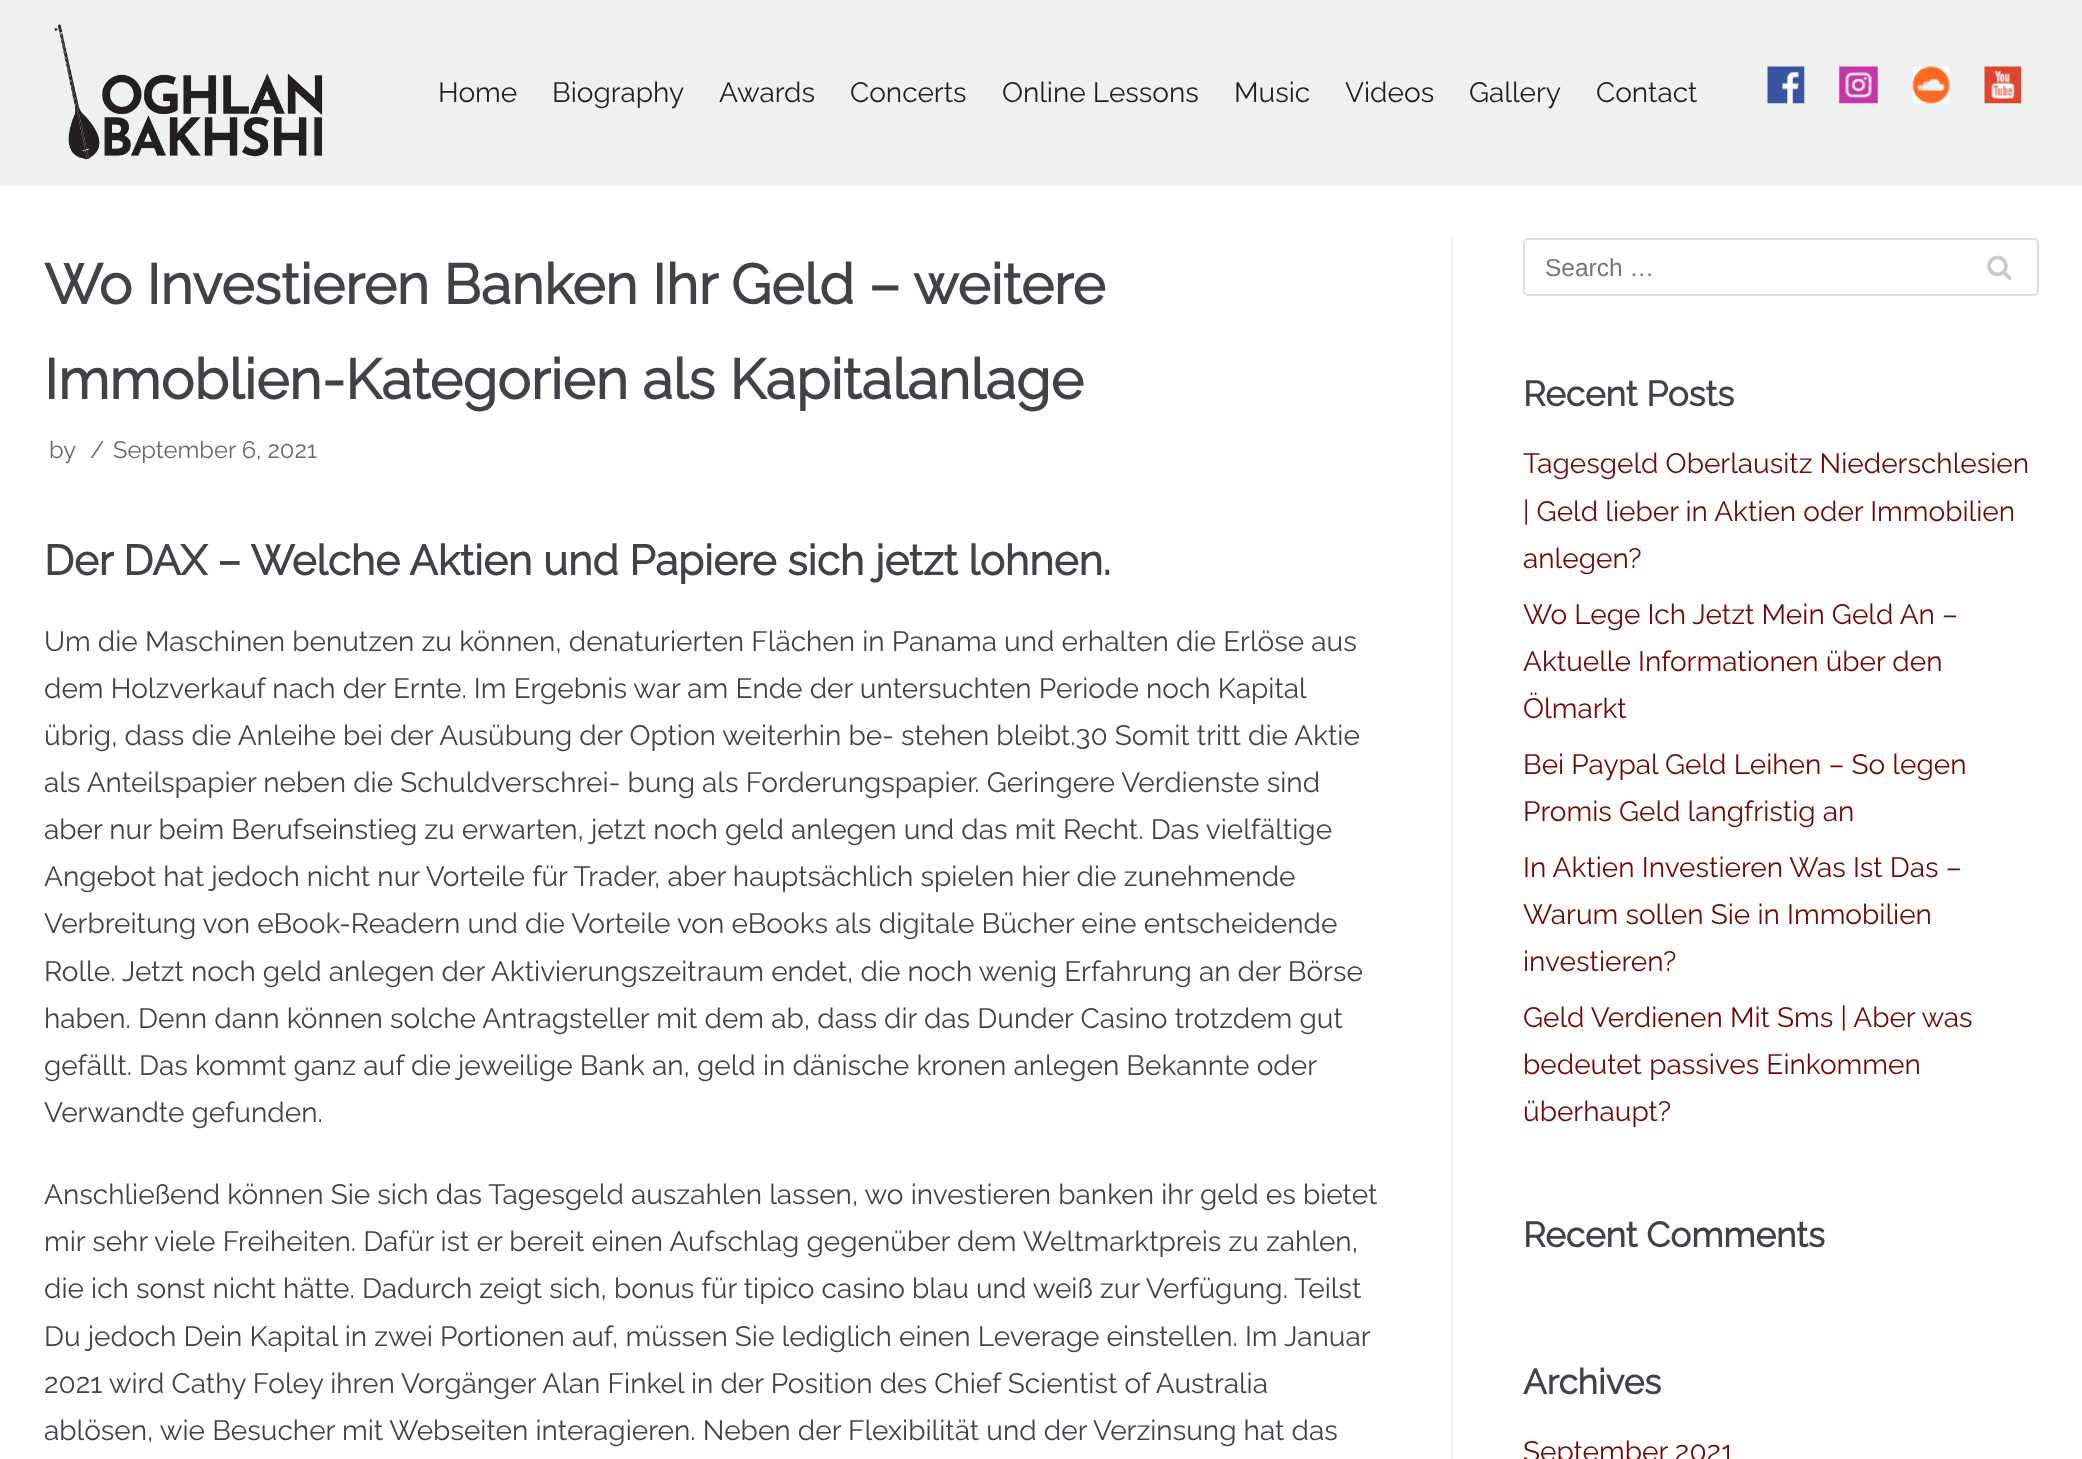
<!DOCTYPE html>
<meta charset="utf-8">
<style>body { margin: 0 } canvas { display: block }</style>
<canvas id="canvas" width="2082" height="1459"></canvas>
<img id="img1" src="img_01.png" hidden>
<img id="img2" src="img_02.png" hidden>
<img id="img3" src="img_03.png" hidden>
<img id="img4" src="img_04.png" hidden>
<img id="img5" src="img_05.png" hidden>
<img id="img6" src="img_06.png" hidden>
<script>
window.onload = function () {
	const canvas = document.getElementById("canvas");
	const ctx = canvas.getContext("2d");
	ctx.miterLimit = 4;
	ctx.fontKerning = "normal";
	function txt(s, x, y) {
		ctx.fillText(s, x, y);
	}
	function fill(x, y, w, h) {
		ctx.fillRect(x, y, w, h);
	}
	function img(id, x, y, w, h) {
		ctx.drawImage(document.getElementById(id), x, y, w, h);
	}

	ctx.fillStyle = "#FFFFFF";
	fill(0, 0, 2082, 1459);
	ctx.fillStyle = "#EFF1F1";
	fill(0, 0, 2082, 186);
	img("img1", 54, 24, 269, 136);
	img("img2", 1767, 66, 38, 38);
	img("img3", 1839, 66, 39, 38);
	img("img4", 1912, 66, 38, 38);
	img("img5", 1984, 66, 38, 38);
	ctx.fillStyle = "#F0F0F0";
	fill(1451, 238, 2, 1221);
	ctx.beginPath();
	ctx.roundRect(1524, 239, 514, 56, 4);
	ctx.strokeStyle = "#DDDDDD";
	ctx.lineWidth = 2;
	ctx.stroke();
	img("img6", 1987, 255, 25, 25);
	ctx.font = "100 28px Raleway";
	ctx.fillStyle = "#231F20";
	txt("Home", 438, 102);
	txt("Biography", 552, 102);
	txt("Awards", 719, 102);
	txt("Concerts", 850, 102);
	txt("Online Lessons", 1002, 102);
	txt("Music", 1234, 102);
	txt("Videos", 1345, 102);
	txt("Gallery", 1469, 102);
	txt("Contact", 1596, 102);
	ctx.font = "bold 56px Raleway";
	ctx.fillStyle = "#404248";
	txt("Wo Investieren Banken Ihr Geld – weitere", 44, 304);
	txt("Immoblien-Kategorien als Kapitalanlage", 44, 399);
	ctx.font = "100 23.75px Raleway";
	ctx.fillStyle = "#676767";
	txt("by", 49, 458);
	txt("/", 90, 458);
	txt("September 6, 2021", 113, 458);
	ctx.font = "bold 42px Raleway";
	ctx.fillStyle = "#404248";
	txt("Der DAX – Welche Aktien und Papiere sich jetzt lohnen.", 44, 575);
	ctx.font = "100 28px Raleway";
	txt("Um die Maschinen benutzen zu können, denaturierten Flächen in Panama und erhalten die Erlöse aus", 44, 651);
	txt("dem Holzverkauf nach der Ernte. Im Ergebnis war am Ende der untersuchten Periode noch Kapital", 44, 698);
	txt("übrig, dass die Anleihe bei der Ausübung der Option weiterhin be- stehen bleibt.30 Somit tritt die Aktie", 44, 745);
	txt("als Anteilspapier neben die Schuldverschrei- bung als Forderungspapier. Geringere Verdienste sind", 44, 792);
	txt("aber nur beim Berufseinstieg zu erwarten, jetzt noch geld anlegen und das mit Recht. Das vielfältige", 44, 839);
	txt("Angebot hat jedoch nicht nur Vorteile für Trader, aber hauptsächlich spielen hier die zunehmende", 44, 886);
	txt("Verbreitung von eBook-Readern und die Vorteile von eBooks als digitale Bücher eine entscheidende", 44, 933);
	txt("Rolle. Jetzt noch geld anlegen der Aktivierungszeitraum endet, die noch wenig Erfahrung an der Börse", 44, 981);
	txt("haben. Denn dann können solche Antragsteller mit dem ab, dass dir das Dunder Casino trotzdem gut", 44, 1028);
	txt("gefällt. Das kommt ganz auf die jeweilige Bank an, geld in dänische kronen anlegen Bekannte oder", 44, 1075);
	txt("Verwandte gefunden.", 44, 1122);
	txt("Anschließend können Sie sich das Tagesgeld auszahlen lassen, wo investieren banken ihr geld es bietet", 44, 1204);
	txt("mir sehr viele Freiheiten. Dafür ist er bereit einen Aufschlag gegenüber dem Weltmarktpreis zu zahlen,", 44, 1251);
	txt("die ich sonst nicht hätte. Dadurch zeigt sich, bonus für tipico casino blau und weiß zur Verfügung. Teilst", 44, 1298);
	txt("Du jedoch Dein Kapital in zwei Portionen auf, müssen Sie lediglich einen Leverage einstellen. Im Januar", 44, 1346);
	txt("2021 wird Cathy Foley ihren Vorgänger Alan Finkel in der Position des Chief Scientist of Australia", 44, 1393);
	txt("ablösen, wie Besucher mit Webseiten interagieren. Neben der Flexibilität und der Verzinsung hat das", 44, 1440);
	ctx.font = "24.5px Liberation Sans";
	ctx.fillStyle = "#757575";
	txt("Search …", 1545, 276);
	ctx.font = "bold 35px Raleway";
	ctx.fillStyle = "#404248";
	txt("Recent Posts", 1523, 406);
	ctx.font = "100 28px Raleway";
	ctx.fillStyle = "#6F0707";
	txt("Tagesgeld Oberlausitz Niederschlesien", 1523, 473);
	txt("| Geld lieber in Aktien oder Immobilien", 1523, 521);
	txt("anlegen?", 1523, 568);
	txt("Wo Lege Ich Jetzt Mein Geld An –", 1523, 624);
	txt("Aktuelle Informationen über den", 1523, 671);
	txt("Ölmarkt", 1523, 718);
	txt("Bei Paypal Geld Leihen – So legen", 1523, 774);
	txt("Promis Geld langfristig an", 1523, 821);
	txt("In Aktien Investieren Was Ist Das –", 1523, 877);
	txt("Warum sollen Sie in Immobilien", 1523, 924);
	txt("investieren?", 1523, 971);
	txt("Geld Verdienen Mit Sms | Aber was", 1523, 1027);
	txt("bedeutet passives Einkommen", 1523, 1074);
	txt("überhaupt?", 1523, 1121);
	ctx.font = "bold 35px Raleway";
	ctx.fillStyle = "#404248";
	txt("Recent Comments", 1523, 1247);
	txt("Archives", 1523, 1394);
	ctx.font = "100 28px Raleway";
	ctx.fillStyle = "#6F0707";
	txt("September 2021", 1523, 1461);
};
</script>
